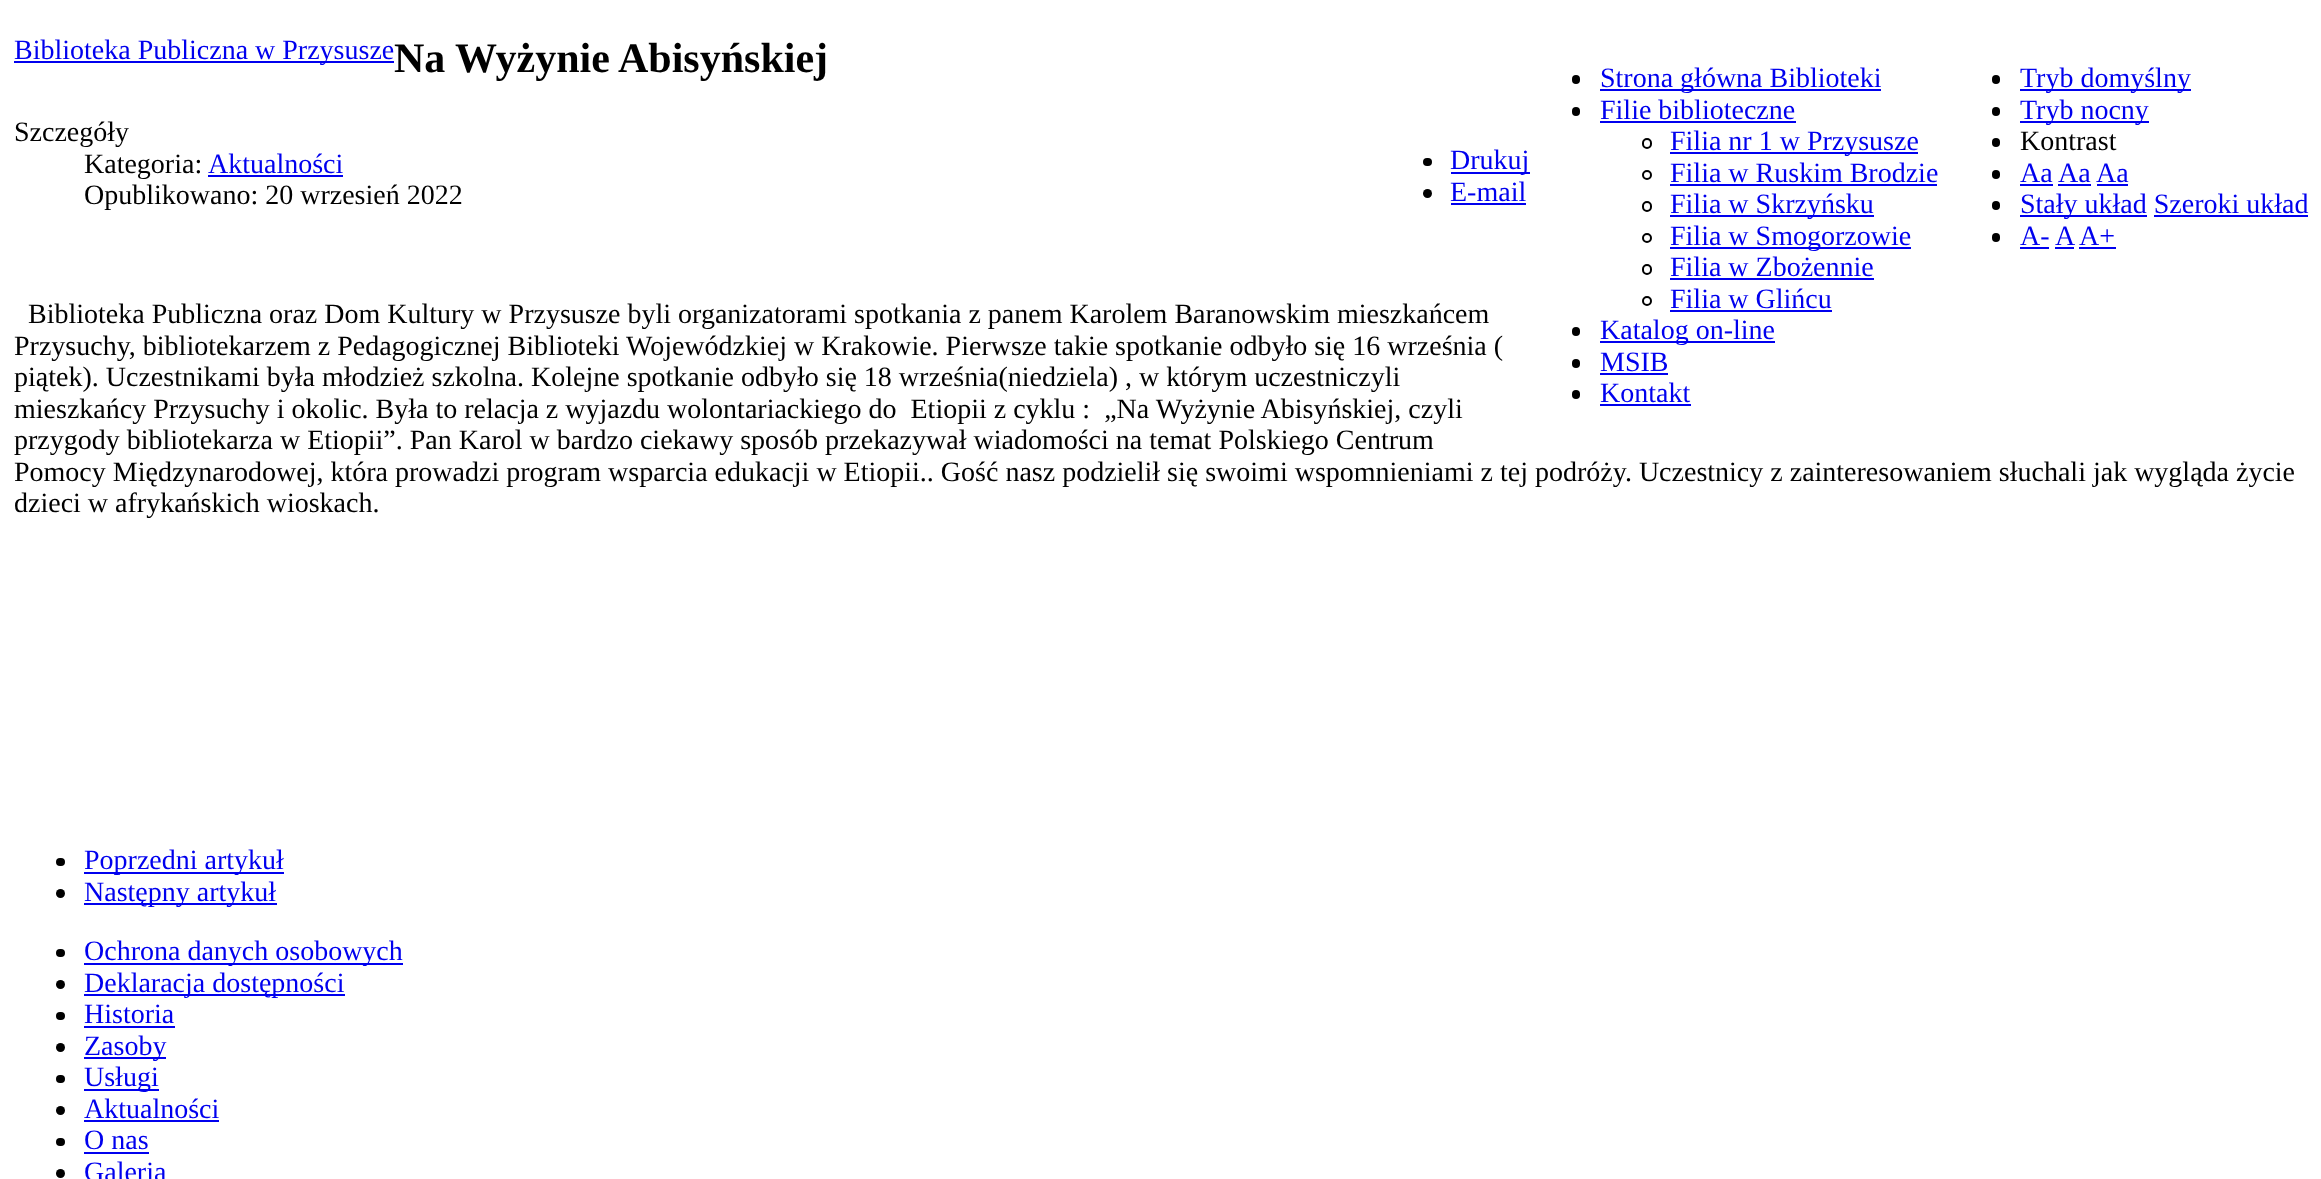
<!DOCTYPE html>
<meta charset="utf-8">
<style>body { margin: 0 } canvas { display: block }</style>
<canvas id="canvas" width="2321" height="1179"></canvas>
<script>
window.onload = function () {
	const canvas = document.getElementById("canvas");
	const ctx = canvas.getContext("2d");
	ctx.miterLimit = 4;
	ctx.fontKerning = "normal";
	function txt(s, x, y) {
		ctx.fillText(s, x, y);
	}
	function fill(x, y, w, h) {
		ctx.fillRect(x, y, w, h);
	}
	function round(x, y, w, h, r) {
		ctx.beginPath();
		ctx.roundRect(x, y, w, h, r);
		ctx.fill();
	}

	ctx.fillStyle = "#FFFFFF";
	fill(0, 0, 2321, 1179);
	ctx.fillStyle = "#0000EE";
	fill(14, 61, 380, 2);
	ctx.fillStyle = "#000000";
	round(1572, 75, 8, 9, 4);
	ctx.fillStyle = "#0000EE";
	fill(1600, 89, 281, 2);
	ctx.fillStyle = "#000000";
	round(1572, 107, 8, 9, 4);
	ctx.fillStyle = "#0000EE";
	fill(1600, 121, 196, 2);
	ctx.beginPath();
	ctx.roundRect(1643, 139, 8, 9, 4);
	ctx.strokeStyle = "#000000";
	ctx.lineWidth = 2;
	ctx.stroke();
	fill(1670, 152, 248, 2);
	ctx.beginPath();
	ctx.arc(1647, 175, 4, 0, Math.PI * 2);
	ctx.stroke();
	fill(1670, 184, 267, 2);
	ctx.beginPath();
	ctx.roundRect(1643, 202, 8, 9, 4);
	ctx.stroke();
	fill(1670, 215, 204, 2);
	ctx.beginPath();
	ctx.arc(1647, 238, 4, 0, Math.PI * 2);
	ctx.stroke();
	fill(1670, 247, 241, 2);
	ctx.beginPath();
	ctx.roundRect(1643, 265, 8, 9, 4);
	ctx.stroke();
	fill(1670, 278, 204, 2);
	ctx.beginPath();
	ctx.arc(1647, 301, 4, 0, Math.PI * 2);
	ctx.stroke();
	fill(1670, 310, 162, 2);
	ctx.fillStyle = "#000000";
	round(1572, 327, 8, 9, 4);
	ctx.fillStyle = "#0000EE";
	fill(1600, 341, 175, 2);
	ctx.fillStyle = "#000000";
	round(1572, 359, 8, 9, 4);
	ctx.fillStyle = "#0000EE";
	fill(1600, 373, 68, 2);
	ctx.fillStyle = "#000000";
	round(1572, 390, 8, 9, 4);
	ctx.fillStyle = "#0000EE";
	fill(1600, 404, 91, 2);
	ctx.fillStyle = "#000000";
	round(1992, 75, 8, 9, 4);
	ctx.fillStyle = "#0000EE";
	fill(2020, 89, 171, 2);
	ctx.fillStyle = "#000000";
	round(1992, 107, 8, 9, 4);
	ctx.fillStyle = "#0000EE";
	fill(2020, 121, 129, 2);
	ctx.fillStyle = "#000000";
	round(1992, 138, 8, 9, 4);
	round(1992, 170, 8, 9, 4);
	ctx.fillStyle = "#0000EE";
	fill(2020, 184, 33, 2);
	fill(2058, 184, 33, 2);
	fill(2097, 184, 31, 2);
	ctx.fillStyle = "#000000";
	round(1992, 201, 8, 9, 4);
	ctx.fillStyle = "#0000EE";
	fill(2020, 215, 127, 2);
	fill(2154, 215, 154, 2);
	ctx.fillStyle = "#000000";
	round(1992, 233, 8, 9, 4);
	ctx.fillStyle = "#0000EE";
	fill(2020, 247, 29, 2);
	fill(2055, 247, 19, 2);
	fill(2079, 247, 37, 2);
	fill(208, 175, 135, 2);
	ctx.fillStyle = "#000000";
	round(1423, 158, 9, 8, 4);
	ctx.fillStyle = "#0000EE";
	fill(1451, 172, 79, 2);
	ctx.fillStyle = "#000000";
	ctx.beginPath();
	ctx.arc(1427.5, 193.5, 4.5, 0, Math.PI * 2);
	ctx.fill();
	ctx.fillStyle = "#0000EE";
	fill(1451, 203, 75, 2);
	ctx.fillStyle = "#000000";
	round(56, 858, 9, 8, 4);
	ctx.fillStyle = "#0000EE";
	fill(84, 872, 200, 2);
	ctx.fillStyle = "#000000";
	ctx.beginPath();
	ctx.arc(60.5, 893.5, 4.5, 0, Math.PI * 2);
	ctx.fill();
	ctx.fillStyle = "#0000EE";
	fill(84, 903, 193, 2);
	ctx.fillStyle = "#000000";
	round(56, 949, 9, 8, 4);
	ctx.fillStyle = "#0000EE";
	fill(84, 963, 319, 2);
	ctx.fillStyle = "#000000";
	ctx.beginPath();
	ctx.arc(60.5, 984.5, 4.5, 0, Math.PI * 2);
	ctx.fill();
	ctx.fillStyle = "#0000EE";
	fill(84, 994, 261, 2);
	ctx.fillStyle = "#000000";
	round(56, 1012, 9, 8, 4);
	ctx.fillStyle = "#0000EE";
	fill(84, 1026, 91, 2);
	ctx.fillStyle = "#000000";
	ctx.beginPath();
	ctx.arc(60.5, 1047.5, 4.5, 0, Math.PI * 2);
	ctx.fill();
	ctx.fillStyle = "#0000EE";
	fill(84, 1057, 82, 2);
	ctx.fillStyle = "#000000";
	round(56, 1075, 9, 8, 4);
	ctx.fillStyle = "#0000EE";
	fill(84, 1089, 75, 2);
	ctx.fillStyle = "#000000";
	ctx.beginPath();
	ctx.arc(60.5, 1110.5, 4.5, 0, Math.PI * 2);
	ctx.fill();
	ctx.fillStyle = "#0000EE";
	fill(84, 1120, 135, 2);
	ctx.fillStyle = "#000000";
	round(56, 1138, 9, 8, 4);
	ctx.fillStyle = "#0000EE";
	fill(84, 1152, 65, 2);
	ctx.fillStyle = "#000000";
	ctx.beginPath();
	ctx.arc(60.5, 1173.5, 4.5, 0, Math.PI * 2);
	ctx.fill();
	ctx.font = "28px Liberation Serif";
	ctx.fillStyle = "#0000EE";
	txt("Biblioteka Publiczna w Przysusze", 14, 59);
	txt("Strona główna Biblioteki", 1600, 87);
	txt("Filie biblioteczne", 1600, 119);
	txt("Filia nr 1 w Przysusze", 1670, 150);
	txt("Filia w Ruskim Brodzie", 1670, 182);
	txt("Filia w Skrzyńsku", 1670, 213);
	txt("Filia w Smogorzowie", 1670, 245);
	txt("Filia w Zbożennie", 1670, 276);
	txt("Filia w Glińcu", 1670, 308);
	txt("Katalog on-line", 1600, 339);
	txt("MSIB", 1600, 371);
	txt("Kontakt", 1600, 402);
	txt("Tryb domyślny", 2020, 87);
	txt("Tryb nocny", 2020, 119);
	ctx.fillStyle = "#000000";
	txt("Kontrast", 2020, 150);
	ctx.fillStyle = "#0000EE";
	txt("Aa", 2020, 182);
	txt("Aa", 2058, 182);
	txt("Aa", 2096, 182);
	txt("Stały układ Szeroki układ", 2020, 213);
	txt("A-", 2020, 245);
	txt("A", 2055, 245);
	txt("A+", 2079, 245);
	ctx.font = "bold 42px Liberation Serif";
	ctx.fillStyle = "#000000";
	txt("Na Wyżynie Abisyńskiej", 394, 72);
	ctx.font = "28px Liberation Serif";
	txt("Szczegóły", 14, 141);
	txt("Kategoria:", 84, 173);
	ctx.fillStyle = "#0000EE";
	txt("Aktualności", 208, 173);
	ctx.fillStyle = "#000000";
	txt("Opublikowano: 20 wrzesień 2022", 84, 204);
	ctx.fillStyle = "#0000EE";
	txt("Drukuj", 1450, 169);
	txt("E-mail", 1450, 201);
	ctx.fillStyle = "#000000";
	txt("Biblioteka Publiczna oraz Dom Kultury w Przysusze byli organizatorami spotkania z panem Karolem Baranowskim mieszkańcem", 28, 323);
	txt("Przysuchy, bibliotekarzem z Pedagogicznej Biblioteki Wojewódzkiej w Krakowie. Pierwsze takie spotkanie odbyło się 16 września (", 14, 355);
	txt("piątek). Uczestnikami była młodzież szkolna. Kolejne spotkanie odbyło się 18 września(niedziela) , w którym uczestniczyli", 14, 386);
	txt("mieszkańcy Przysuchy i okolic. Była to relacja z wyjazdu wolontariackiego do  Etiopii z cyklu :  „Na Wyżynie Abisyńskiej, czyli", 14, 418);
	txt("przygody bibliotekarza w Etiopii”. Pan Karol w bardzo ciekawy sposób przekazywał wiadomości na temat Polskiego Centrum", 14, 449);
	txt("Pomocy Międzynarodowej, która prowadzi program wsparcia edukacji w Etiopii.. Gość nasz podzielił się swoimi wspomnieniami z tej podróży. Uczestnicy z zainteresowaniem słuchali jak wygląda życie", 14, 481);
	txt("dzieci w afrykańskich wioskach.", 14, 512);
	ctx.fillStyle = "#0000EE";
	txt("Poprzedni artykuł", 84, 869);
	txt("Następny artykuł", 84, 901);
	txt("Ochrona danych osobowych", 84, 960);
	txt("Deklaracja dostępności", 84, 992);
	txt("Historia", 84, 1023);
	txt("Zasoby", 84, 1055);
	txt("Usługi", 84, 1086);
	txt("Aktualności", 84, 1118);
	txt("O nas", 84, 1149);
	txt("Galeria", 84, 1181);
};
</script>
